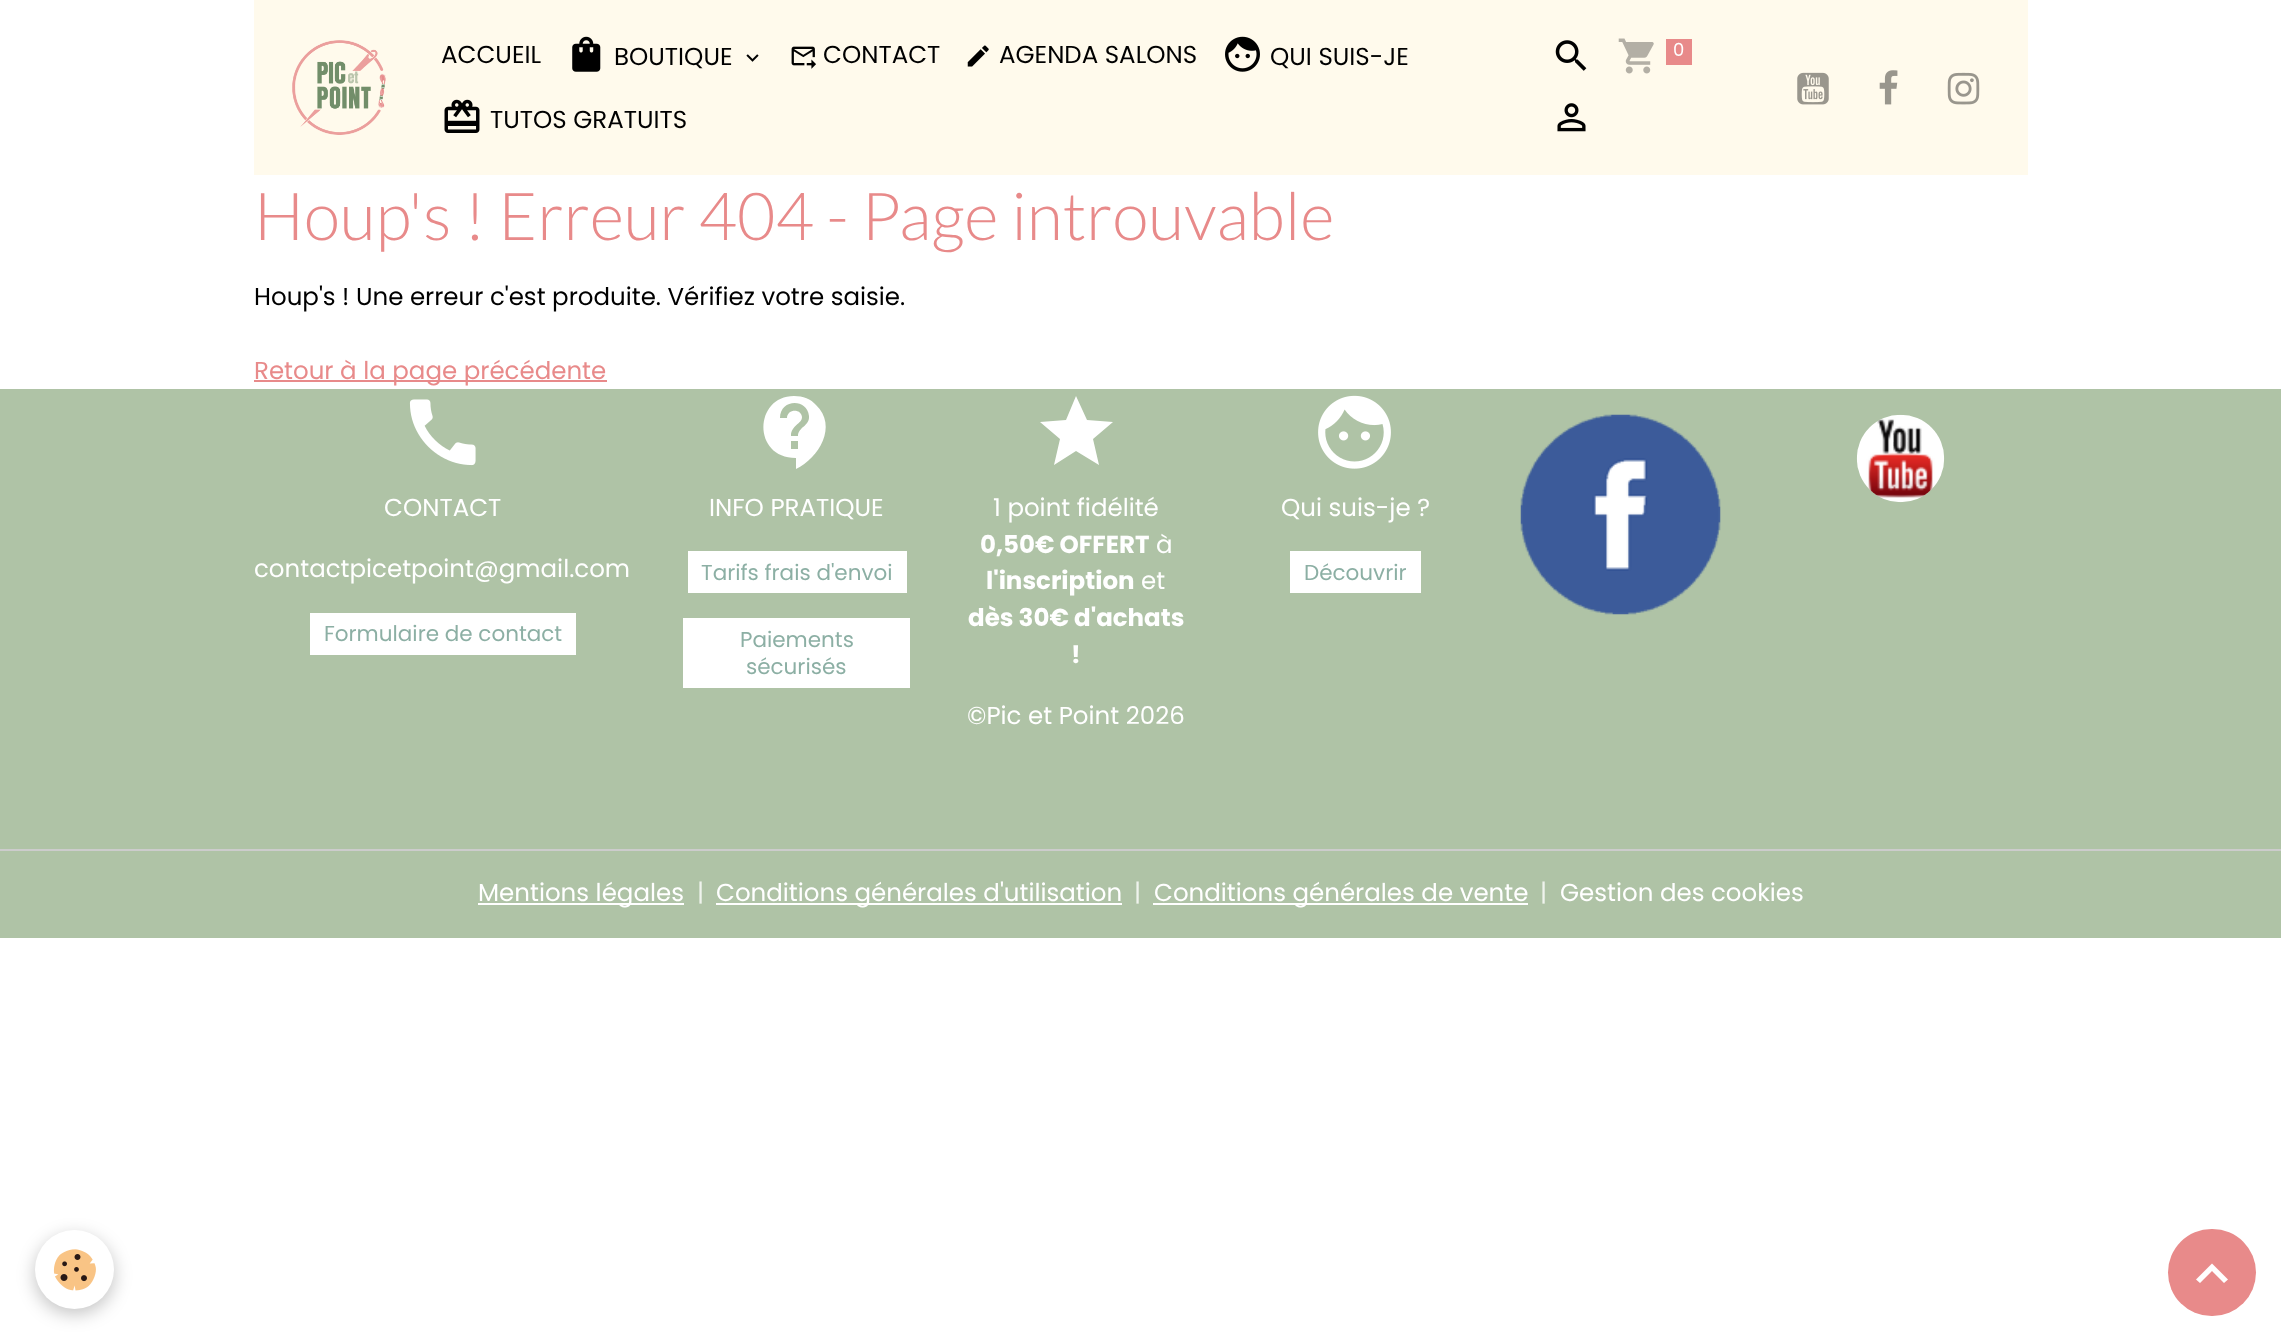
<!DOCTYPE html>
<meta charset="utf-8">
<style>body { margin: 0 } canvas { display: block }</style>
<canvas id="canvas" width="2281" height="1341"></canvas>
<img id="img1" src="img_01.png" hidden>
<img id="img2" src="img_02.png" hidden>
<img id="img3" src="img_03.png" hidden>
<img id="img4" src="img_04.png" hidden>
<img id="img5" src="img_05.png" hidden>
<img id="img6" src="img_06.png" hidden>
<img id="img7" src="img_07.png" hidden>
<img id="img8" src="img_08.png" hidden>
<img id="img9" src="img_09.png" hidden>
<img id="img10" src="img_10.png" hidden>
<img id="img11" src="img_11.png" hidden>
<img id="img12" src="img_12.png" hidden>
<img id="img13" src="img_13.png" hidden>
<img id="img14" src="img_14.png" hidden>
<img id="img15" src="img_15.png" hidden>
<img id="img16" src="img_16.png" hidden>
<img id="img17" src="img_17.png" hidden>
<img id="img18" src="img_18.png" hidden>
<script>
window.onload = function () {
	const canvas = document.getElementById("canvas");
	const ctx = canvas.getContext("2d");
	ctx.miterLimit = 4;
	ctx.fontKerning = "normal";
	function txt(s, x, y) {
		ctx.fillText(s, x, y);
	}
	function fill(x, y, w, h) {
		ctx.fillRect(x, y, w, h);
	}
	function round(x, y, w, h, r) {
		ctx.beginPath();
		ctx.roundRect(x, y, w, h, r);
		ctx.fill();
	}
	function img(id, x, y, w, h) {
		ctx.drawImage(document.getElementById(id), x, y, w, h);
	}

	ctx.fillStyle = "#FFFFFF";
	fill(0, 0, 2281, 1341);
	ctx.fillStyle = "#FFFAEC";
	fill(254, 0, 1774, 175);
	img("img1", 292, 40, 94, 95);
	img("img2", 572, 36, 29, 36);
	img("img3", 746, 54, 13, 8);
	img("img4", 791, 46, 25, 23);
	img("img5", 967, 45, 22, 22);
	img("img6", 1225, 36, 35, 36);
	img("img7", 444, 99, 36, 34);
	img("img8", 1555, 40, 32, 31);
	img("img9", 1618, 38, 36, 36);
	ctx.fillStyle = "#E88A8A";
	fill(1666, 39, 26, 26);
	img("img10", 1557, 103, 29, 29);
	img("img11", 1797, 72, 32, 33);
	img("img12", 1879, 70, 19, 35);
	img("img13", 1947, 72, 33, 33);
	fill(254, 380, 353, 2);
	ctx.fillStyle = "#AFC3A6";
	fill(0, 389, 2281, 549);
	img("img14", 1520, 414, 201, 201);
	img("img15", 1856, 414, 89, 89);
	img("img16", 409, 399, 67, 67);
	ctx.fillStyle = "#FFFFFF";
	fill(310, 613, 266, 42);
	ctx.beginPath();
	ctx.moveTo(794, 396);
	ctx.bezierCurveTo(803, 396, 811, 399, 816, 405);
	ctx.bezierCurveTo(838, 426, 819, 458, 796, 469);
	ctx.lineTo(796, 458);
	ctx.bezierCurveTo(752, 458, 754, 396, 794, 396);
	ctx.closePath();
	ctx.moveTo(798, 449);
	ctx.lineTo(798, 441);
	ctx.lineTo(791, 441);
	ctx.lineTo(791, 449);
	ctx.closePath();
	ctx.moveTo(798, 436);
	ctx.bezierCurveTo(798, 427, 810, 426, 809, 416);
	ctx.bezierCurveTo(807, 398, 780, 399, 780, 418);
	ctx.lineTo(787, 418);
	ctx.bezierCurveTo(787, 409, 801, 408, 802, 417);
	ctx.bezierCurveTo(802, 424, 791, 425, 791, 436);
	ctx.closePath();
	ctx.fill();
	fill(688, 551, 219, 42);
	fill(683, 618, 227, 70);
	ctx.beginPath();
	ctx.moveTo(1076, 451);
	ctx.lineTo(1054, 465);
	ctx.lineTo(1060, 439);
	ctx.lineTo(1040, 422);
	ctx.lineTo(1066, 420);
	ctx.lineTo(1076, 396);
	ctx.lineTo(1087, 420);
	ctx.lineTo(1113, 422);
	ctx.lineTo(1093, 439);
	ctx.lineTo(1099, 465);
	ctx.closePath();
	ctx.fill();
	img("img17", 1318, 395, 73, 74);
	fill(1290, 551, 131, 42);
	ctx.fillStyle = "#CCCCCC";
	fill(0, 849, 2281, 2);
	ctx.fillStyle = "#FFFFFF";
	fill(478, 903, 206, 2);
	fill(716, 903, 406, 2);
	fill(1153, 903, 375, 2);
	ctx.fillStyle = "rgba(0, 0, 0, 0.24)";
	ctx.filter = "blur(9px)";
	ctx.beginPath();
	ctx.roundRect(35, 1236, 79, 78, 39);
	ctx.fill();
	ctx.filter = "none";
	ctx.fillStyle = "#FFFFFF";
	ctx.beginPath();
	ctx.arc(74.5, 1269.5, 39.5, 0, Math.PI * 2);
	ctx.fill();
	img("img18", 53, 1249, 43, 42);
	ctx.fillStyle = "#E88A8A";
	round(2168, 1229, 88, 87, 43.5);
	ctx.fillStyle = "#FFFFFF";
	ctx.beginPath();
	ctx.moveTo(2212, 1263.5);
	ctx.lineTo(2228, 1279.5);
	ctx.lineTo(2224, 1283);
	ctx.lineTo(2212, 1271);
	ctx.lineTo(2200, 1283);
	ctx.lineTo(2196, 1279.5);
	ctx.closePath();
	ctx.fill();
	ctx.font = "24.5px Poppins";
	ctx.fillStyle = "#000000";
	txt("ACCUEIL", 441, 63);
	txt("BOUTIQUE", 614, 65);
	txt("CONTACT", 823, 63);
	txt("AGENDA SALONS", 999, 63);
	txt("QUI SUIS-JE", 1270, 65);
	txt("TUTOS GRATUITS", 490, 128);
	ctx.font = "18px Poppins";
	ctx.fillStyle = "#FFFFFF";
	txt("0", 1673, 56);
	ctx.font = "300 66.2px Lato";
	ctx.fillStyle = "#E88A8A";
	txt("Houp's ! Erreur 404 - Page introuvable", 254, 240);
	ctx.font = "24.5px Poppins";
	ctx.fillStyle = "#000000";
	txt("Houp's ! Une erreur c'est produite. Vérifiez votre saisie.", 254, 305);
	ctx.fillStyle = "#E88A8A";
	txt("Retour à la page précédente", 254, 379);
	ctx.fillStyle = "#FFFFFF";
	txt("CONTACT", 384, 516);
	txt("contactpicetpoint@gmail.com", 254, 577);
	ctx.font = "21.5px Poppins";
	ctx.fillStyle = "#8CAFA4";
	txt("Formulaire de contact", 324, 641);
	ctx.font = "24.5px Poppins";
	ctx.fillStyle = "#FFFFFF";
	txt("INFO PRATIQUE", 709, 516);
	ctx.font = "21.5px Poppins";
	ctx.fillStyle = "#8CAFA4";
	txt("Tarifs frais d'envoi", 701, 580);
	txt("Paiements", 740, 647);
	txt("sécurisés", 746, 674);
	ctx.font = "24.5px Poppins";
	ctx.fillStyle = "#FFFFFF";
	txt("1 point fidélité", 993, 516);
	ctx.font = "bold 24.5px Poppins";
	txt("0,50€ OFFERT", 980, 553);
	ctx.font = "24.5px Poppins";
	txt("à", 1156, 553);
	ctx.font = "bold 24.5px Poppins";
	txt("l'inscription", 986, 589);
	ctx.font = "24.5px Poppins";
	txt("et", 1141, 589);
	ctx.font = "bold 24.5px Poppins";
	txt("dès 30€ d'achats", 968, 626);
	txt("!", 1071, 663);
	ctx.font = "24.5px Poppins";
	txt("©Pic et Point 2026", 967, 724);
	txt("Qui suis-je ?", 1281, 516);
	ctx.font = "21.5px Poppins";
	ctx.fillStyle = "#8CAFA4";
	txt("Découvrir", 1304, 580);
	ctx.font = "24.5px Poppins";
	ctx.fillStyle = "#FFFFFF";
	txt("Mentions légales", 478, 901);
	ctx.fillStyle = "#EFF3ED";
	txt("|", 697, 901);
	ctx.fillStyle = "#FFFFFF";
	txt("Conditions générales d'utilisation", 716, 901);
	ctx.fillStyle = "#EFF3ED";
	txt("|", 1134, 901);
	ctx.fillStyle = "#FFFFFF";
	txt("Conditions générales de vente", 1154, 901);
	ctx.fillStyle = "#EFF3ED";
	txt("|", 1540, 901);
	ctx.fillStyle = "#FFFFFF";
	txt("Gestion des cookies", 1560, 901);
};
</script>
